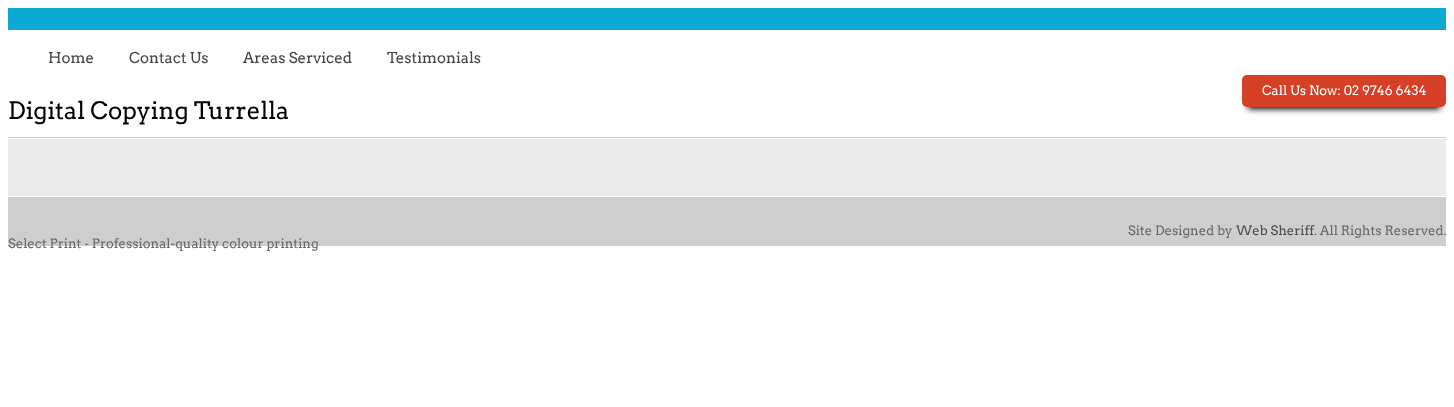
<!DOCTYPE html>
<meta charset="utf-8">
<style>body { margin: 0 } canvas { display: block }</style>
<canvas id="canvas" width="1454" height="407"></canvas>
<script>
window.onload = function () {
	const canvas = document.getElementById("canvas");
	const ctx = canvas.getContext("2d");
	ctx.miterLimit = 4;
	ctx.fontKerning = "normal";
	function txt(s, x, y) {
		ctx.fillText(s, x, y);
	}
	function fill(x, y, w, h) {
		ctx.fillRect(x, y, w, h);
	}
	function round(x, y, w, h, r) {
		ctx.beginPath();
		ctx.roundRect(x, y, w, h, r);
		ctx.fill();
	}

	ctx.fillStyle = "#FFFFFF";
	fill(0, 0, 1454, 407);
	ctx.fillStyle = "#0DA9D5";
	fill(8, 8, 1438, 22);
	ctx.fillStyle = "#000000";
	ctx.filter = "blur(3px)";
	ctx.beginPath();
	ctx.rect(1248, 89, 192, 20);
	ctx.fill();
	ctx.filter = "none";
	ctx.fillStyle = "#D64026";
	round(1242, 75, 204, 32, 5);
	ctx.fillStyle = "#CCCCCC";
	fill(8, 137, 1438, 1);
	ctx.fillStyle = "#EBEBEB";
	fill(8, 139, 1438, 57);
	ctx.fillStyle = "#CECECE";
	fill(8, 198, 1438, 48);
	ctx.fillStyle = "#CCCCCC";
	fill(8, 197, 1438, 1);
	ctx.font = "15px Arvo";
	ctx.fillStyle = "#444444";
	txt("Home", 48, 63);
	txt("Contact Us", 129, 63);
	txt("Areas Serviced", 243, 63);
	txt("Testimonials", 387, 63);
	ctx.font = "13px Arvo";
	ctx.fillStyle = "#FFFFFF";
	txt("Call Us Now: 02 9746 6434", 1262, 95);
	ctx.font = "24px Arvo";
	ctx.fillStyle = "#010101";
	txt("Digital Copying Turrella", 8, 119);
	ctx.font = "13px Arvo";
	ctx.fillStyle = "#686868";
	txt("Site Designed by", 1128, 235);
	ctx.fillStyle = "#4D4C4C";
	txt("Web Sheriff", 1236, 235);
	ctx.fillStyle = "#686868";
	txt(". All Rights Reserved.", 1314, 235);
	txt("Select Print - Professional-quality colour printing", 8, 248);
};
</script>
